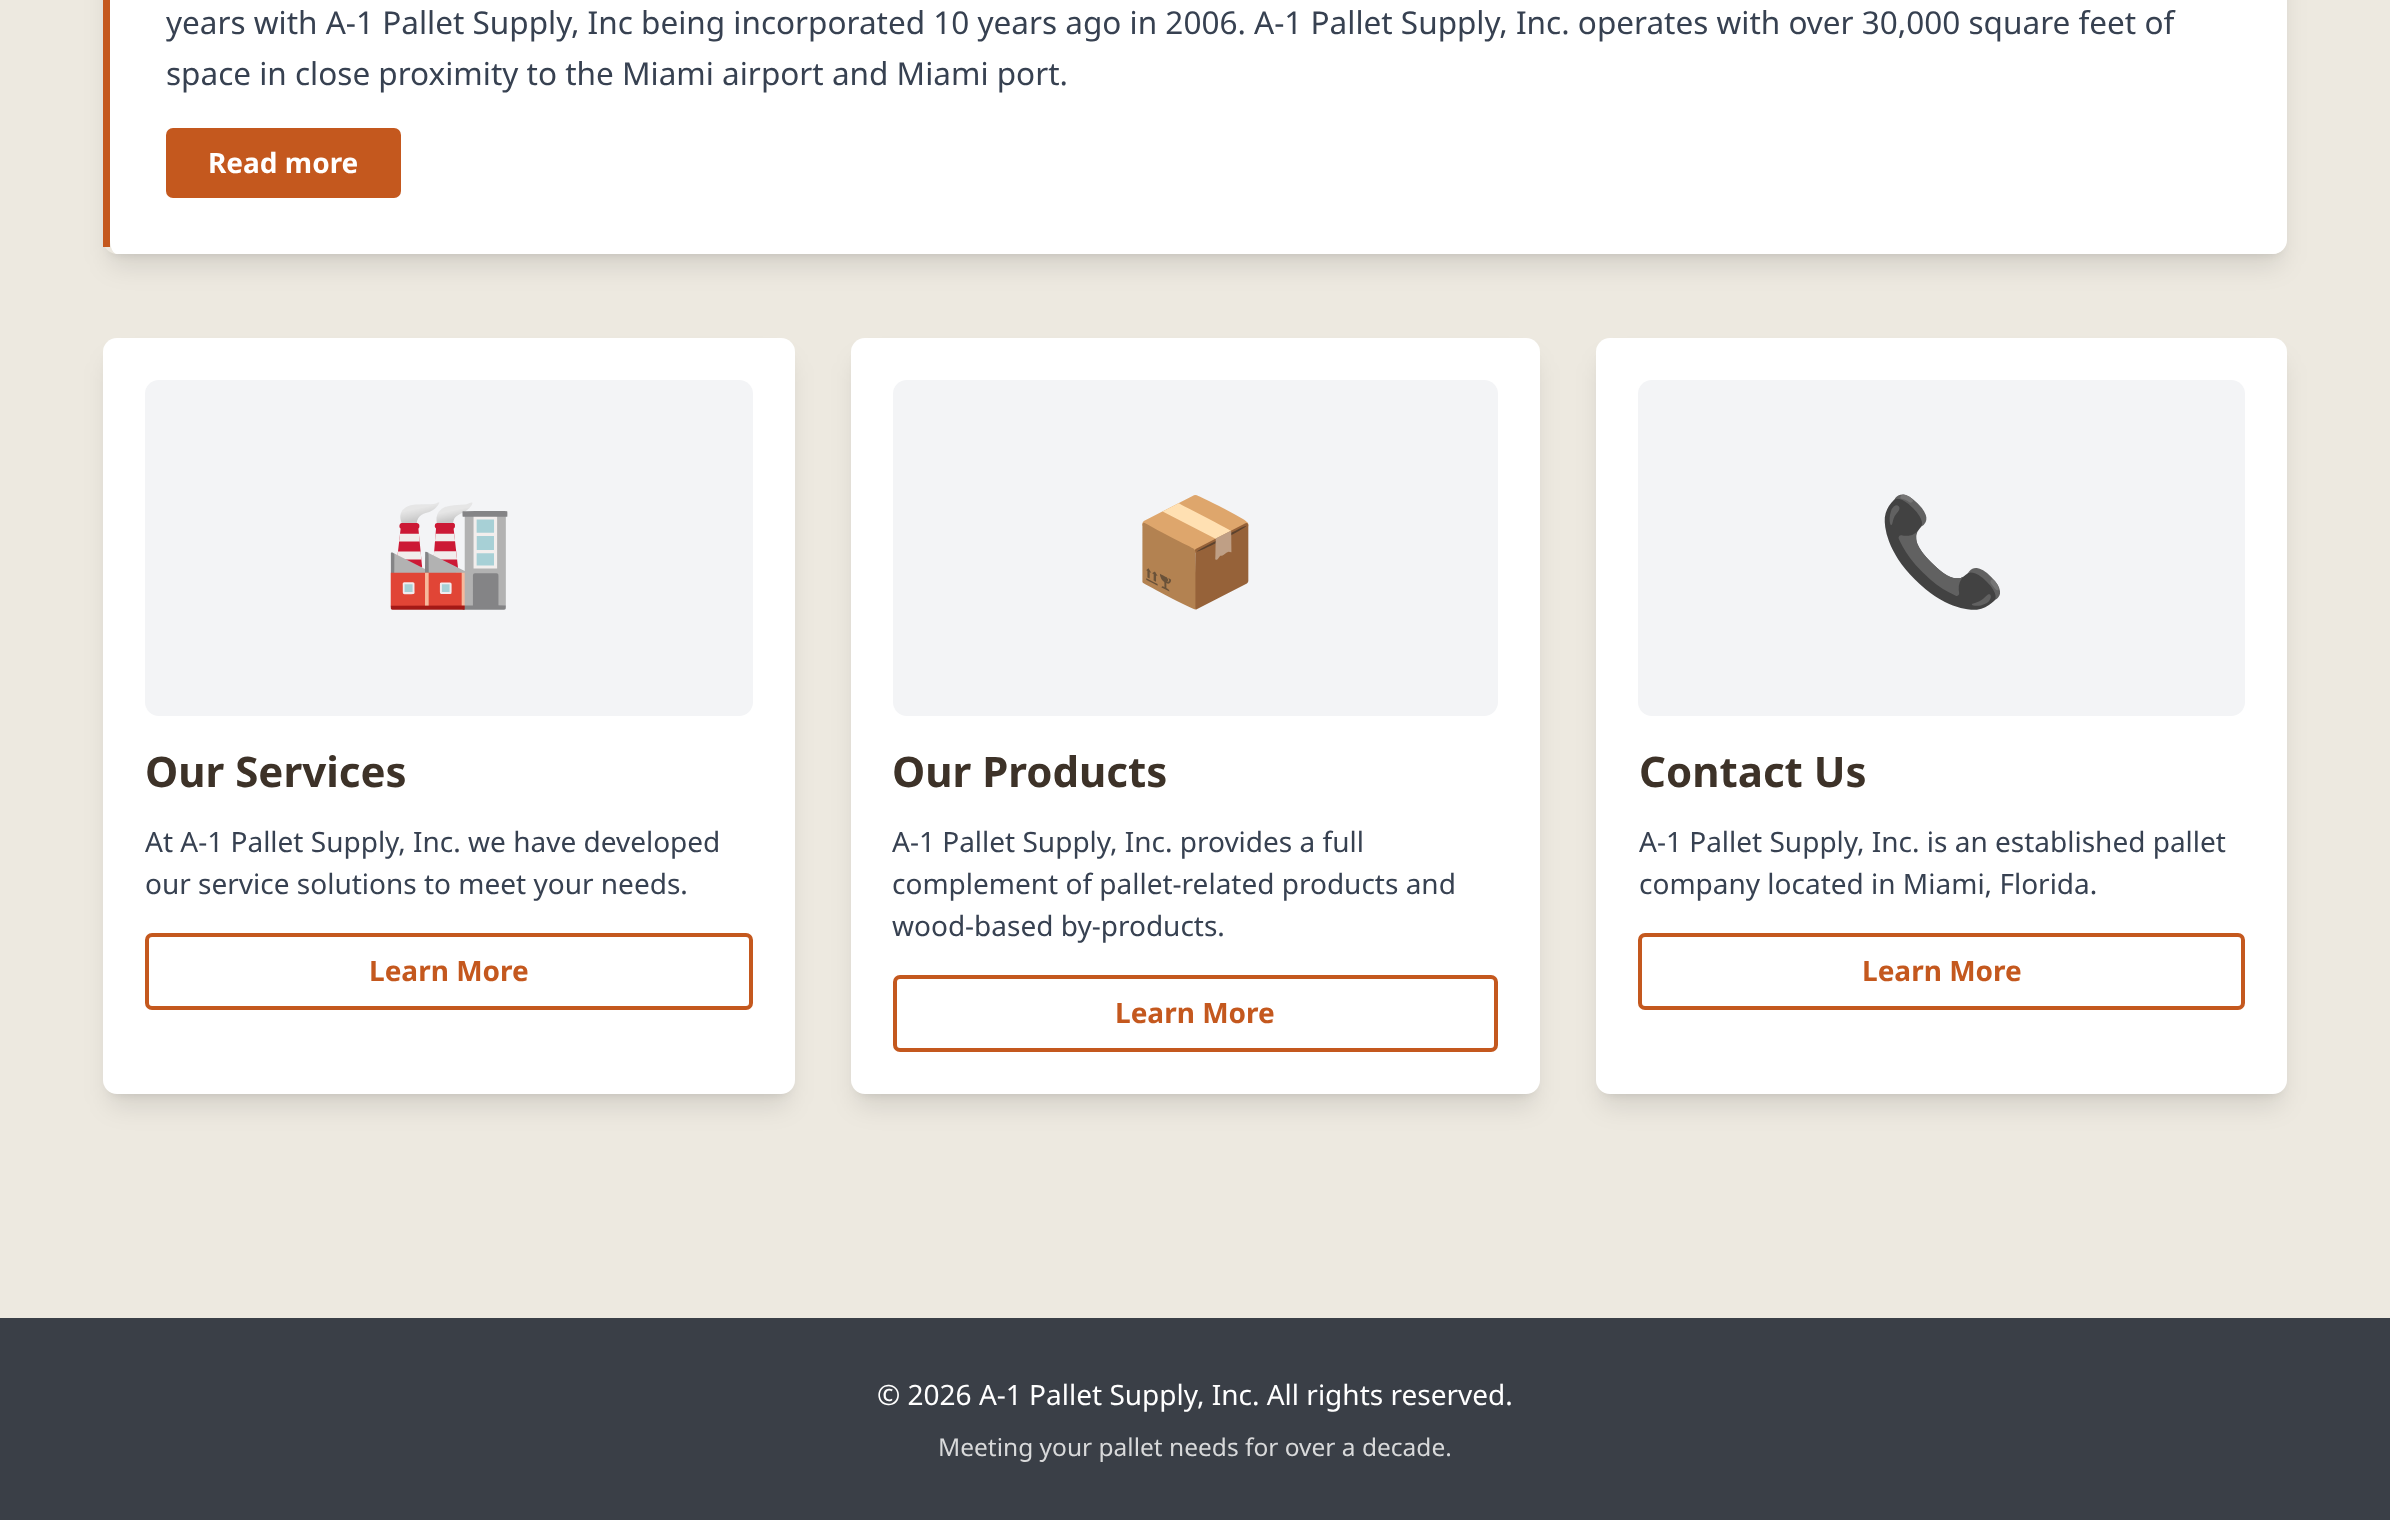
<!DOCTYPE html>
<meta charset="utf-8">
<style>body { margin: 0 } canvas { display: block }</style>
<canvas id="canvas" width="2390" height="1520"></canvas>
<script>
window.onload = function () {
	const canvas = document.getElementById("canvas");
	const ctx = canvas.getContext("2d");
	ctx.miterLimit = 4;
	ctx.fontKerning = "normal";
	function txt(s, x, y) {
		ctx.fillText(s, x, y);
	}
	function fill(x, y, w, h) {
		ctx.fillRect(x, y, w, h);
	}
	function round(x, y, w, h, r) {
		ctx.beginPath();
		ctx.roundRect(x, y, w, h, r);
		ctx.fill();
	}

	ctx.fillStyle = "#EDE9E0";
	fill(0, 0, 2390, 1520);
	ctx.save();
	ctx.beginPath();
	ctx.moveTo(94, 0);
	ctx.lineTo(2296, 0);
	ctx.lineTo(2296, 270);
	ctx.lineTo(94, 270);
	ctx.closePath();
	ctx.moveTo(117, -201);
	ctx.lineTo(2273, -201);
	ctx.bezierCurveTo(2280.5, -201, 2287, -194.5, 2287, -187);
	ctx.lineTo(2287, 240);
	ctx.bezierCurveTo(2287, 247.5, 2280.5, 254, 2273, 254);
	ctx.lineTo(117, 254);
	ctx.bezierCurveTo(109.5, 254, 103, 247.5, 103, 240);
	ctx.lineTo(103, -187);
	ctx.bezierCurveTo(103, -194.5, 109.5, -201, 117, -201);
	ctx.closePath();
	ctx.clip("evenodd");
	ctx.fillStyle = "rgba(0, 0, 0, 0.1)";
	ctx.filter = "blur(5px)";
	ctx.beginPath();
	ctx.roundRect(110, -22, 2170, 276, 7);
	ctx.fill();
	ctx.filter = "none";
	ctx.restore();
	ctx.save();
	ctx.beginPath();
	ctx.moveTo(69, 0);
	ctx.lineTo(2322, 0);
	ctx.lineTo(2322, 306);
	ctx.lineTo(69, 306);
	ctx.closePath();
	ctx.moveTo(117, -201);
	ctx.lineTo(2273, -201);
	ctx.bezierCurveTo(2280.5, -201, 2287, -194.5, 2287, -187);
	ctx.lineTo(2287, 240);
	ctx.bezierCurveTo(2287, 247.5, 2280.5, 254, 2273, 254);
	ctx.lineTo(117, 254);
	ctx.bezierCurveTo(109.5, 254, 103, 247.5, 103, 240);
	ctx.lineTo(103, -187);
	ctx.bezierCurveTo(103, -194.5, 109.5, -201, 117, -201);
	ctx.closePath();
	ctx.clip("evenodd");
	ctx.fillStyle = "rgba(0, 0, 0, 0.1)";
	ctx.filter = "blur(13px)";
	ctx.beginPath();
	ctx.roundRect(109, -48, 2173, 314, 9);
	ctx.fill();
	ctx.filter = "none";
	ctx.restore();
	ctx.fillStyle = "#FFFFFF";
	ctx.beginPath();
	ctx.moveTo(117, -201);
	ctx.lineTo(2273, -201);
	ctx.bezierCurveTo(2281, -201, 2287, -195, 2287, -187);
	ctx.lineTo(2287, 240);
	ctx.bezierCurveTo(2287, 247, 2281, 254, 2273, 254);
	ctx.lineTo(117, 254);
	ctx.bezierCurveTo(113, 254, 110, 247, 110, 240);
	ctx.lineTo(110, -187);
	ctx.bezierCurveTo(110, -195, 113, -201, 117, -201);
	ctx.closePath();
	ctx.fill();
	ctx.fillStyle = "#C4581E";
	fill(103, 0, 7, 247);
	round(166, 128, 235, 70, 7);
	ctx.fillStyle = "rgba(0, 0, 0, 0.1)";
	ctx.filter = "blur(5px)";
	ctx.beginPath();
	ctx.roundRect(110, 352, 678, 742, 7);
	ctx.fill();
	ctx.filter = "none";
	ctx.filter = "blur(13px)";
	ctx.beginPath();
	ctx.roundRect(109, 361, 680, 745, 9);
	ctx.fill();
	ctx.filter = "none";
	ctx.fillStyle = "#FFFFFF";
	round(103, 338, 692, 756, 14);
	ctx.fillStyle = "#F3F4F6";
	round(145, 380, 608, 336, 14);
	ctx.beginPath();
	ctx.roundRect(147, 935, 604, 73, 5);
	ctx.strokeStyle = "#C4581E";
	ctx.lineWidth = 4;
	ctx.stroke();
	ctx.fillStyle = "rgba(0, 0, 0, 0.1)";
	ctx.filter = "blur(5px)";
	ctx.beginPath();
	ctx.roundRect(858, 352, 675, 742, 7);
	ctx.fill();
	ctx.filter = "none";
	ctx.filter = "blur(13px)";
	ctx.beginPath();
	ctx.roundRect(856, 361, 679, 745, 9);
	ctx.fill();
	ctx.filter = "none";
	ctx.fillStyle = "#FFFFFF";
	round(851, 338, 689, 756, 14);
	ctx.fillStyle = "#F3F4F6";
	round(893, 380, 605, 336, 14);
	ctx.beginPath();
	ctx.roundRect(895, 977, 601, 73, 5);
	ctx.stroke();
	ctx.fillStyle = "rgba(0, 0, 0, 0.1)";
	ctx.filter = "blur(5px)";
	ctx.beginPath();
	ctx.roundRect(1603, 352, 677, 742, 7);
	ctx.fill();
	ctx.filter = "none";
	ctx.filter = "blur(13px)";
	ctx.beginPath();
	ctx.roundRect(1601, 361, 681, 745, 9);
	ctx.fill();
	ctx.filter = "none";
	ctx.fillStyle = "#FFFFFF";
	round(1596, 338, 691, 756, 14);
	ctx.fillStyle = "#F3F4F6";
	round(1638, 380, 607, 336, 14);
	ctx.beginPath();
	ctx.roundRect(1640, 935, 603, 73, 5);
	ctx.stroke();
	ctx.fillStyle = "#3A3F47";
	fill(0, 1318, 2390, 202);
	ctx.font = "31.5px Noto Sans";
	ctx.fillStyle = "#374151";
	txt("years with A-1 Pallet Supply, Inc being incorporated 10 years ago in 2006. A-1 Pallet Supply, Inc. operates with over 30,000 square feet of", 166, 34);
	txt("space in close proximity to the Miami airport and Miami port.", 166, 85);
	ctx.font = "bold 28px Noto Sans";
	ctx.fillStyle = "#FFFFFF";
	txt("Read more", 208, 173);
	ctx.font = "105px Noto Color Emoji";
	ctx.fillStyle = "#3D3228";
	txt("🏭", 383, 588);
	ctx.font = "bold 42px Noto Sans";
	txt("Our Services", 145, 787);
	ctx.font = "28px Noto Sans";
	ctx.fillStyle = "#374151";
	txt("At A-1 Pallet Supply, Inc. we have developed", 145, 852);
	txt("our service solutions to meet your needs.", 145, 894);
	ctx.font = "bold 28px Noto Sans";
	ctx.fillStyle = "#C4581E";
	txt("Learn More", 369, 981);
	ctx.font = "105px Noto Color Emoji";
	ctx.fillStyle = "#3D3228";
	txt("📦", 1130, 588);
	ctx.font = "bold 42px Noto Sans";
	txt("Our Products", 892, 787);
	ctx.font = "28px Noto Sans";
	ctx.fillStyle = "#374151";
	txt("A-1 Pallet Supply, Inc. provides a full", 892, 852);
	txt("complement of pallet-related products and", 892, 894);
	txt("wood-based by-products.", 892, 936);
	ctx.font = "bold 28px Noto Sans";
	ctx.fillStyle = "#C4581E";
	txt("Learn More", 1115, 1023);
	ctx.font = "105px Noto Color Emoji";
	ctx.fillStyle = "#3D3228";
	txt("📞", 1877, 588);
	ctx.font = "bold 42px Noto Sans";
	txt("Contact Us", 1639, 787);
	ctx.font = "28px Noto Sans";
	ctx.fillStyle = "#374151";
	txt("A-1 Pallet Supply, Inc. is an established pallet", 1639, 852);
	txt("company located in Miami, Florida.", 1639, 894);
	ctx.font = "bold 28px Noto Sans";
	ctx.fillStyle = "#C4581E";
	txt("Learn More", 1862, 981);
	ctx.font = "28px Noto Sans";
	ctx.fillStyle = "#FFFFFF";
	txt("© 2026 A-1 Pallet Supply, Inc. All rights reserved.", 877, 1405);
	ctx.font = "24.5px Noto Sans";
	ctx.fillStyle = "#D8D9DA";
	txt("Meeting your pallet needs for over a decade.", 938, 1456);
};
</script>
